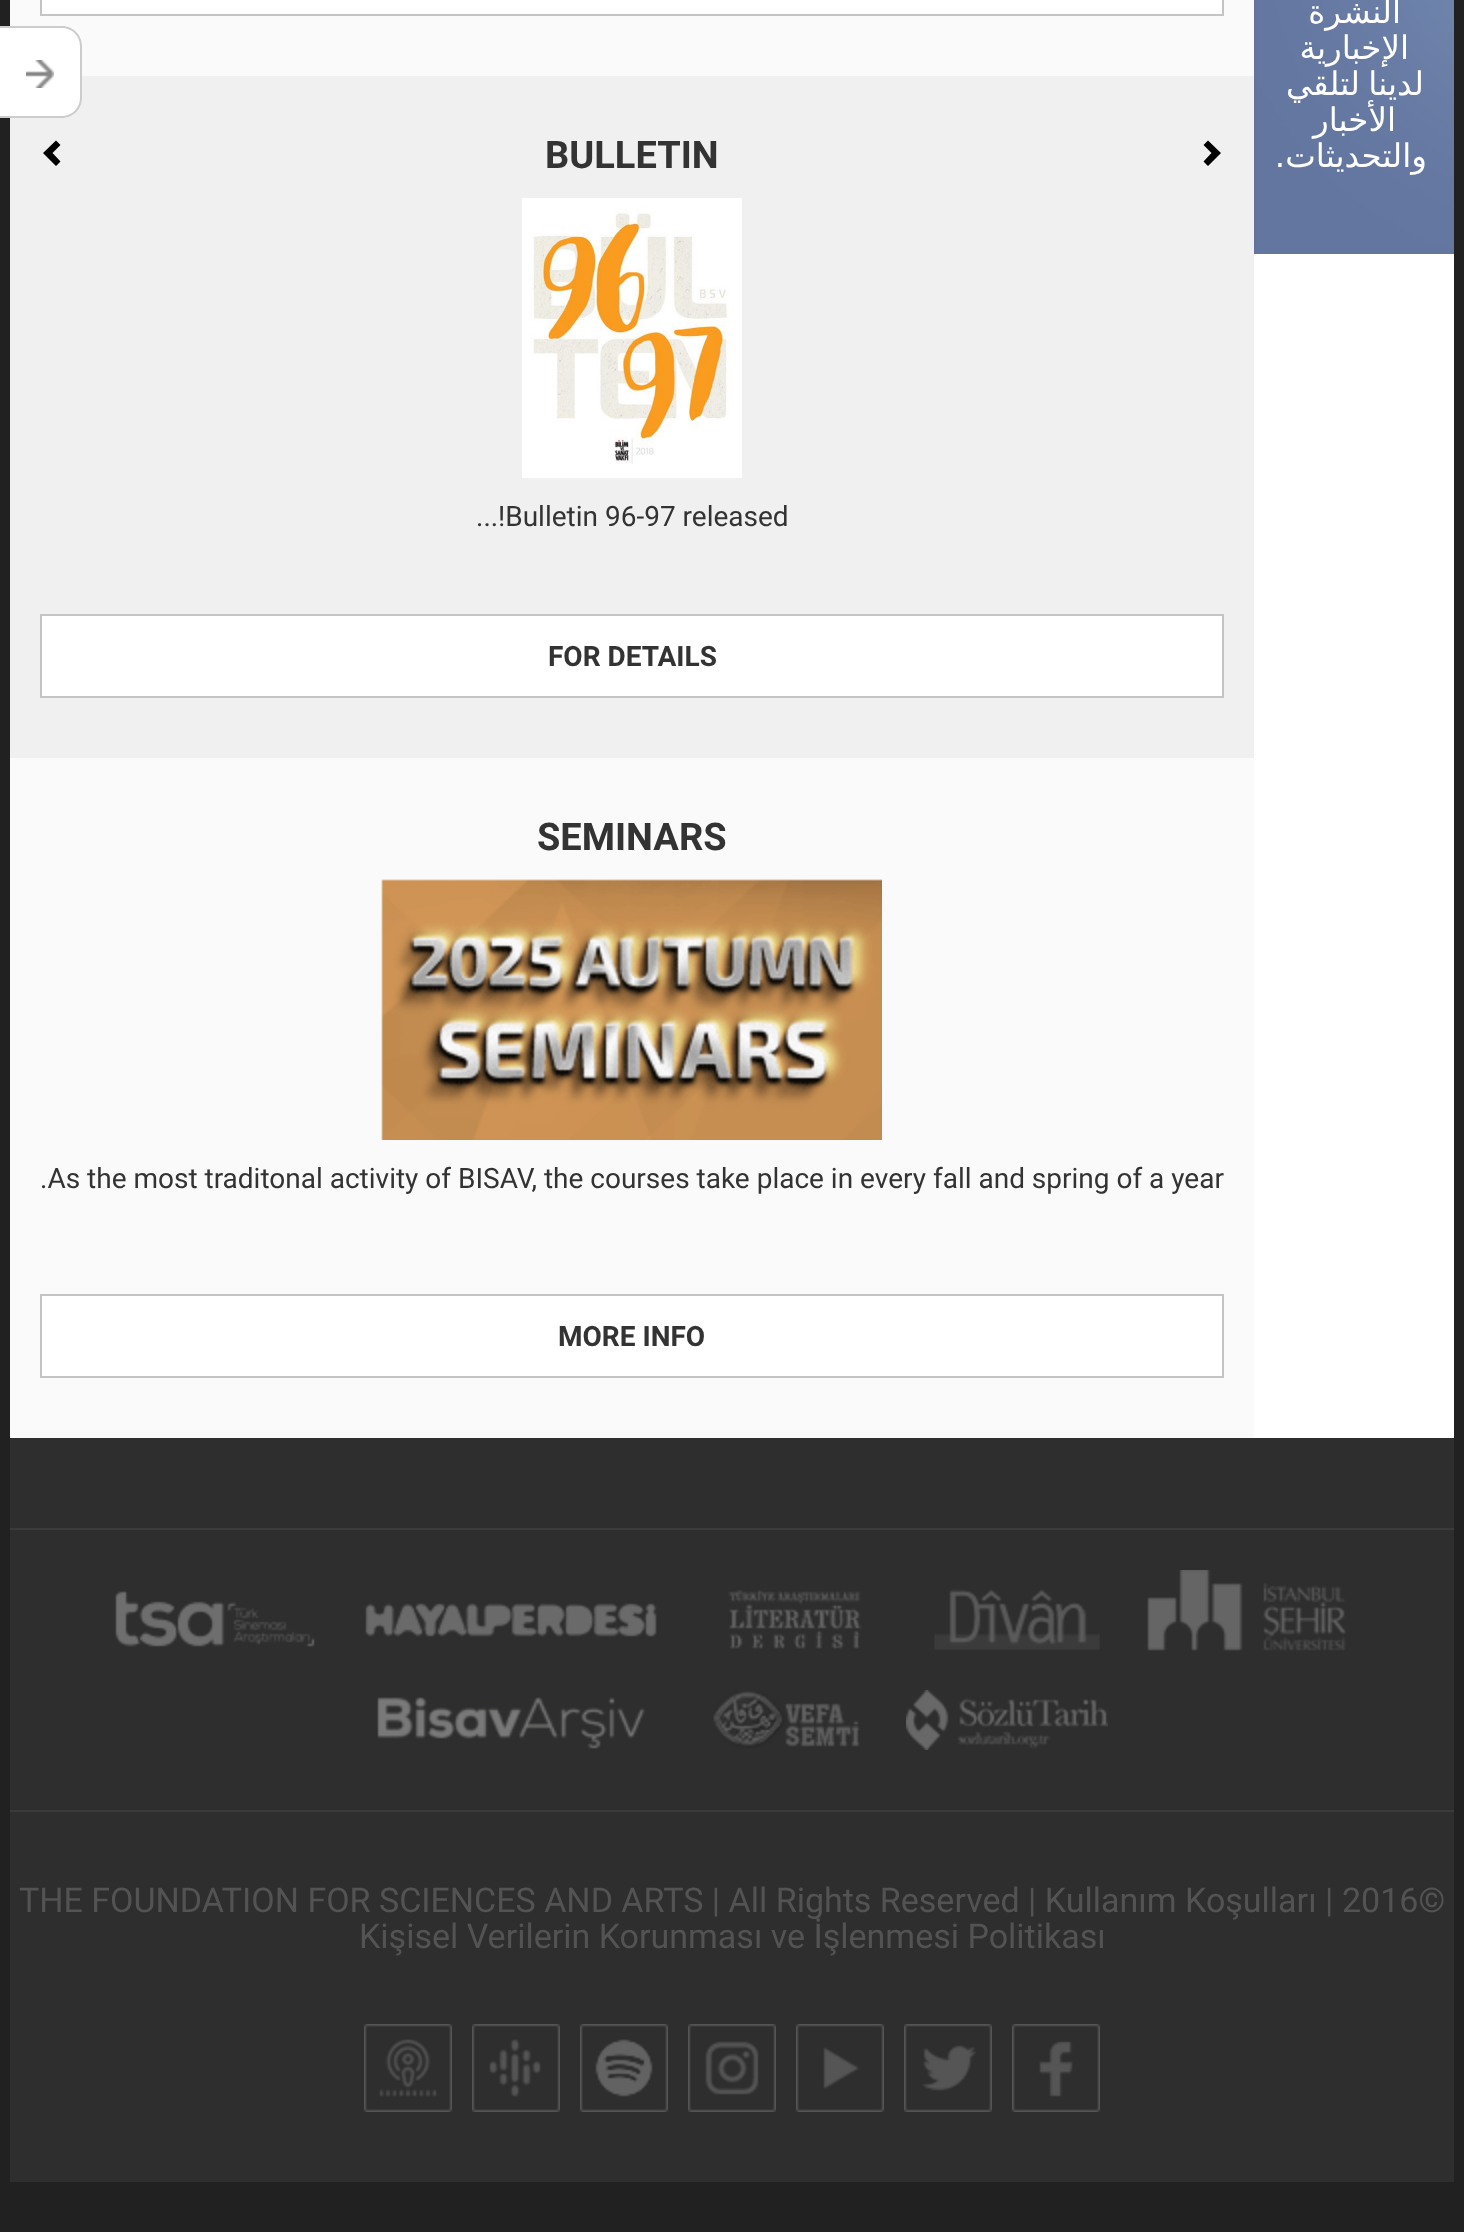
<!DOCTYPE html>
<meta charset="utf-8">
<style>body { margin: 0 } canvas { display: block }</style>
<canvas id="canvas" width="1464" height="2232"></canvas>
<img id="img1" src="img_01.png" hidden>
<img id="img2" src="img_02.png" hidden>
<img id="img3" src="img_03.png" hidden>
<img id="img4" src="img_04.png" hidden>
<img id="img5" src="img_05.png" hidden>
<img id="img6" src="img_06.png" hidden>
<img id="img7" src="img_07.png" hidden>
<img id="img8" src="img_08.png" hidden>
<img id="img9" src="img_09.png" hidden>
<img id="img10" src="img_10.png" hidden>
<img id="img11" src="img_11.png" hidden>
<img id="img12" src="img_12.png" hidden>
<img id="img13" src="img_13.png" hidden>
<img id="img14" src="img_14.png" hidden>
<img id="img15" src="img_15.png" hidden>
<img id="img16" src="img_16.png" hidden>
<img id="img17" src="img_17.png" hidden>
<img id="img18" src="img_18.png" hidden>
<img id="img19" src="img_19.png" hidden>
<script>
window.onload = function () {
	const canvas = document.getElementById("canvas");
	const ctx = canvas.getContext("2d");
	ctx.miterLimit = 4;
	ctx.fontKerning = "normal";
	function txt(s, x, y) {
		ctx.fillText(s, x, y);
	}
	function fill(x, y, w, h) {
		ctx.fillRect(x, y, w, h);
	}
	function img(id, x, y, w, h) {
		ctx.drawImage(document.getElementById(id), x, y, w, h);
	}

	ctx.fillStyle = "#212121";
	fill(0, 0, 1464, 2232);
	ctx.fillStyle = "#FFFFFF";
	fill(1254, 254, 200, 1184);
	ctx.fillStyle = "#FAFAFA";
	fill(10, 0, 1244, 76);
	ctx.fillStyle = "#F0F0F0";
	fill(10, 76, 1244, 682);
	ctx.fillStyle = "#FFFFFF";
	ctx.beginPath();
	ctx.roundRect(0, 26, 82, 92, [0, 20, 20, 0]);
	ctx.fill();
	ctx.fillStyle = "#CCCCCC";
	ctx.beginPath();
	ctx.moveTo(0, 26);
	ctx.lineTo(62, 26);
	ctx.bezierCurveTo(73, 26, 82, 35, 82, 46);
	ctx.lineTo(82, 98);
	ctx.bezierCurveTo(82, 109, 73, 118, 62, 118);
	ctx.lineTo(0, 118);
	ctx.closePath();
	ctx.moveTo(0, 28);
	ctx.lineTo(62, 28);
	ctx.bezierCurveTo(72, 28, 80, 36, 80, 46);
	ctx.lineTo(80, 98);
	ctx.bezierCurveTo(80, 108, 72, 116, 62, 116);
	ctx.lineTo(0, 116);
	ctx.closePath();
	ctx.fill("evenodd");
	img("img1", 26, 60, 28, 28);
	img("img2", 1254, 0, 200, 254);
	ctx.fillStyle = "#FFFFFF";
	ctx.beginPath();
	ctx.rect(41, -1, 1182, 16);
	ctx.fill();
	ctx.strokeStyle = "#C4C4C4";
	ctx.lineWidth = 2;
	ctx.stroke();
	ctx.fillStyle = "#000000";
	ctx.beginPath();
	ctx.moveTo(60.5, 145);
	ctx.lineTo(52.5, 153);
	ctx.lineTo(60.5, 161.5);
	ctx.lineTo(56, 166);
	ctx.lineTo(43, 153);
	ctx.lineTo(56, 140.5);
	ctx.closePath();
	ctx.fill();
	img("img3", 522, 198, 220, 280);
	ctx.fillStyle = "#FFFFFF";
	ctx.beginPath();
	ctx.rect(41, 615, 1182, 82);
	ctx.fill();
	ctx.stroke();
	ctx.fillStyle = "#000000";
	ctx.beginPath();
	ctx.moveTo(1221, 153);
	ctx.lineTo(1208, 166);
	ctx.lineTo(1203.5, 161.5);
	ctx.lineTo(1211.5, 153);
	ctx.lineTo(1203.5, 145);
	ctx.lineTo(1208, 140.5);
	ctx.closePath();
	ctx.fill();
	ctx.fillStyle = "#FAFAFA";
	fill(10, 758, 1244, 680);
	img("img4", 381, 879, 501, 261);
	ctx.fillStyle = "#FFFFFF";
	ctx.beginPath();
	ctx.rect(41, 1295, 1182, 82);
	ctx.fill();
	ctx.stroke();
	ctx.fillStyle = "#2E2E2E";
	fill(10, 1438, 1444, 744);
	ctx.fillStyle = "#3B3B3B";
	fill(10, 1528, 1444, 2);
	fill(10, 1810, 1444, 2);
	img("img5", 115, 1591, 200, 56);
	img("img6", 365, 1603, 292, 34);
	img("img7", 728, 1590, 134, 59);
	img("img8", 934, 1589, 166, 61);
	img("img9", 1147, 1570, 199, 81);
	img("img10", 377, 1697, 268, 52);
	img("img11", 713, 1691, 147, 57);
	img("img12", 906, 1690, 202, 60);
	img("img13", 364, 2024, 88, 88);
	img("img14", 472, 2024, 88, 88);
	img("img15", 580, 2024, 88, 88);
	img("img16", 688, 2024, 88, 88);
	img("img17", 796, 2024, 88, 88);
	img("img18", 904, 2024, 88, 88);
	img("img19", 1012, 2024, 88, 88);
	ctx.direction = "rtl";
	ctx.font = "32.5px DejaVu Sans";
	ctx.fillStyle = "#FFFFFF";
	txt("النشرة", 1401, 23);
	txt("الإخبارية", 1409, 59);
	ctx.wordSpacing = "-2px";
	txt("لدينا لتلقي", 1424, 95);
	ctx.wordSpacing = "0px";
	txt("الأخبار", 1396, 131);
	txt("والتحديثات.", 1427, 167);
	ctx.direction = "ltr";
	ctx.font = "bold 38px Roboto";
	ctx.fillStyle = "#333333";
	txt("BULLETIN", 545, 168);
	ctx.font = "28px Roboto";
	txt("...", 476, 526);
	txt("!Bulletin 96-97 released", 498, 526);
	ctx.font = "bold 28px Roboto";
	txt("FOR DETAILS", 548, 666);
	ctx.font = "bold 38px Roboto";
	txt("SEMINARS", 537, 850);
	ctx.font = "28px Roboto";
	txt(".As the most traditonal activity of BISAV, the courses take place in every fall and spring of a year", 40, 1188);
	ctx.font = "bold 28px Roboto";
	txt("MORE INFO", 558, 1346);
	ctx.font = "34px Roboto";
	ctx.fillStyle = "#535353";
	txt("THE FOUNDATION FOR SCIENCES AND ARTS | All Rights Reserved | Kullanım Koşulları |", 19, 1912);
	txt("2016©", 1342, 1912);
	txt("Kişisel Verilerin Korunması ve İşlenmesi Politikası", 359, 1948);
};
</script>
